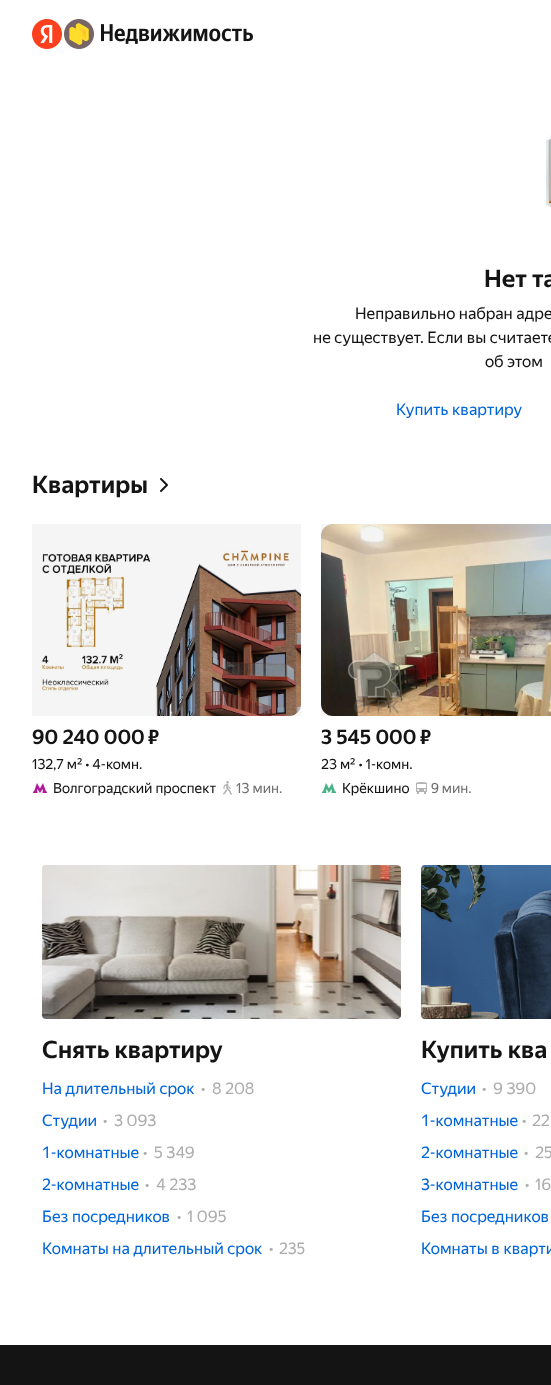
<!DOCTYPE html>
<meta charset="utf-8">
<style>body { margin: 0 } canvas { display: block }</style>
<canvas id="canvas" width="551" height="1385"></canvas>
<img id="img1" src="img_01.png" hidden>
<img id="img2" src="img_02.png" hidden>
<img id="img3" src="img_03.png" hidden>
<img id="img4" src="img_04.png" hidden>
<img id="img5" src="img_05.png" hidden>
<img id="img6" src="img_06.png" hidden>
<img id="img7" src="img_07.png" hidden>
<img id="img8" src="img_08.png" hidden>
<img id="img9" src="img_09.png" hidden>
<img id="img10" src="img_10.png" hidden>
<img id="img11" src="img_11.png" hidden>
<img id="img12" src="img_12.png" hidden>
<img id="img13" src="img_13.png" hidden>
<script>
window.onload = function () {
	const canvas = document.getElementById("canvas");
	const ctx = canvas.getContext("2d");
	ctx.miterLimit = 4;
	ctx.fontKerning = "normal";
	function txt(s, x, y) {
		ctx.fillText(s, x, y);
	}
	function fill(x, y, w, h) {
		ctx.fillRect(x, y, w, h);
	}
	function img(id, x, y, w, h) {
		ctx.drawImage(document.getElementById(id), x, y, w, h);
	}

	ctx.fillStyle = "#FFFFFF";
	fill(0, 0, 551, 1385);
	img("img1", 32, 19, 30, 30);
	img("img2", 64, 19, 30, 30);
	img("img3", 101, 24, 152, 20);
	img("img4", 546, 135, 5, 73);
	img("img5", 160, 478, 8, 14);
	img("img6", 32, 524, 269, 192);
	ctx.fillStyle = "rgba(0, 0, 0, 0.04)";
	fill(32, 524, 269, 192);
	img("img7", 33, 783, 14, 10);
	img("img8", 223, 781, 9, 14);
	img("img9", 321, 524, 230, 192);
	fill(321, 524, 230, 192);
	img("img10", 322, 783, 14, 10);
	img("img11", 416, 782, 11, 12);
	img("img12", 42, 865, 359, 154);
	img("img13", 421, 865, 130, 154);
	ctx.fillStyle = "#141414";
	fill(0, 1345, 551, 40);
	ctx.font = "bold 24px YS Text";
	txt("Нет та", 484, 287);
	ctx.font = "16px YS Text";
	txt("Неправильно набран адре", 355, 319);
	txt("не существует. Если вы считаете", 313, 343);
	txt("об этом", 485, 367);
	ctx.fillStyle = "#0065D9";
	txt("Купить квартиру", 396, 415);
	ctx.font = "bold 24px YS Text";
	ctx.fillStyle = "#141414";
	txt("Квартиры", 32, 493);
	ctx.font = "bold 20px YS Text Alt";
	txt("90 240 000", 32, 744);
	ctx.font = "bold 20px YS Text";
	txt("₽", 148, 744);
	ctx.font = "14px YS Text Alt";
	txt("132,7 м² • 4-комн.", 32, 769);
	ctx.font = "14px YS Text";
	txt("Волгоградский проспект", 53, 793);
	ctx.font = "14px YS Text Alt";
	ctx.fillStyle = "#707070";
	txt("13 мин.", 236, 793);
	ctx.font = "bold 20px YS Text Alt";
	ctx.fillStyle = "#141414";
	txt("3 545 000", 321, 744);
	ctx.font = "bold 20px YS Text";
	txt("₽", 420, 744);
	ctx.font = "14px YS Text Alt";
	txt("23 м² • 1-комн.", 321, 769);
	ctx.font = "14px YS Text";
	txt("Крёкшино", 342, 793);
	ctx.fillStyle = "#707070";
	txt("9 мин.", 431, 793);
	ctx.font = "bold 24px YS Text";
	ctx.fillStyle = "#141414";
	txt("Снять квартиру", 42, 1058);
	ctx.font = "16px YS Text";
	ctx.fillStyle = "#0065D9";
	txt("На длительный срок", 42, 1094);
	ctx.fillStyle = "#ADADAD";
	txt("•", 201, 1094);
	ctx.font = "16px YS Text Alt";
	txt("8 208", 212, 1094);
	ctx.font = "16px YS Text";
	ctx.fillStyle = "#0065D9";
	txt("Студии", 42, 1126);
	ctx.fillStyle = "#ADADAD";
	txt("•", 103, 1126);
	ctx.font = "16px YS Text Alt";
	txt("3 093", 114, 1126);
	ctx.font = "16px YS Text";
	ctx.fillStyle = "#0065D9";
	txt("1-комнатные", 42, 1158);
	ctx.fillStyle = "#ADADAD";
	txt("•", 143, 1158);
	ctx.font = "16px YS Text Alt";
	txt("5 349", 154, 1158);
	ctx.font = "16px YS Text";
	ctx.fillStyle = "#0065D9";
	txt("2-комнатные", 42, 1190);
	ctx.fillStyle = "#ADADAD";
	txt("•", 145, 1190);
	ctx.font = "16px YS Text Alt";
	txt("4 233", 156, 1190);
	ctx.font = "16px YS Text";
	ctx.fillStyle = "#0065D9";
	txt("Без посредников", 42, 1222);
	ctx.fillStyle = "#ADADAD";
	txt("•", 177, 1222);
	ctx.font = "16px YS Text Alt";
	txt("1 095", 187, 1222);
	ctx.font = "16px YS Text";
	ctx.fillStyle = "#0065D9";
	txt("Комнаты на длительный срок", 42, 1254);
	ctx.fillStyle = "#ADADAD";
	txt("•", 269, 1254);
	txt("235", 279, 1254);
	ctx.font = "bold 24px YS Text";
	ctx.fillStyle = "#141414";
	txt("Купить ква", 421, 1058);
	ctx.font = "16px YS Text";
	ctx.fillStyle = "#0065D9";
	txt("Студии", 421, 1094);
	ctx.fillStyle = "#ADADAD";
	txt("•", 482, 1094);
	ctx.font = "16px YS Text Alt";
	txt("9 390", 493, 1094);
	ctx.font = "16px YS Text";
	ctx.fillStyle = "#0065D9";
	txt("1-комнатные", 421, 1126);
	ctx.fillStyle = "#ADADAD";
	txt("•", 522, 1126);
	ctx.font = "16px YS Text Alt";
	txt("22", 532, 1126);
	ctx.font = "16px YS Text";
	ctx.fillStyle = "#0065D9";
	txt("2-комнатные", 421, 1158);
	ctx.fillStyle = "#ADADAD";
	txt("•", 524, 1158);
	ctx.font = "16px YS Text Alt";
	txt("25", 535, 1158);
	ctx.font = "16px YS Text";
	ctx.fillStyle = "#0065D9";
	txt("3-комнатные", 421, 1190);
	ctx.fillStyle = "#ADADAD";
	txt("•", 525, 1190);
	ctx.font = "16px YS Text Alt";
	txt("16", 535, 1190);
	ctx.font = "16px YS Text";
	ctx.fillStyle = "#0065D9";
	txt("Без посредников", 421, 1222);
	txt("Комнаты в кварти", 421, 1254);
};
</script>
